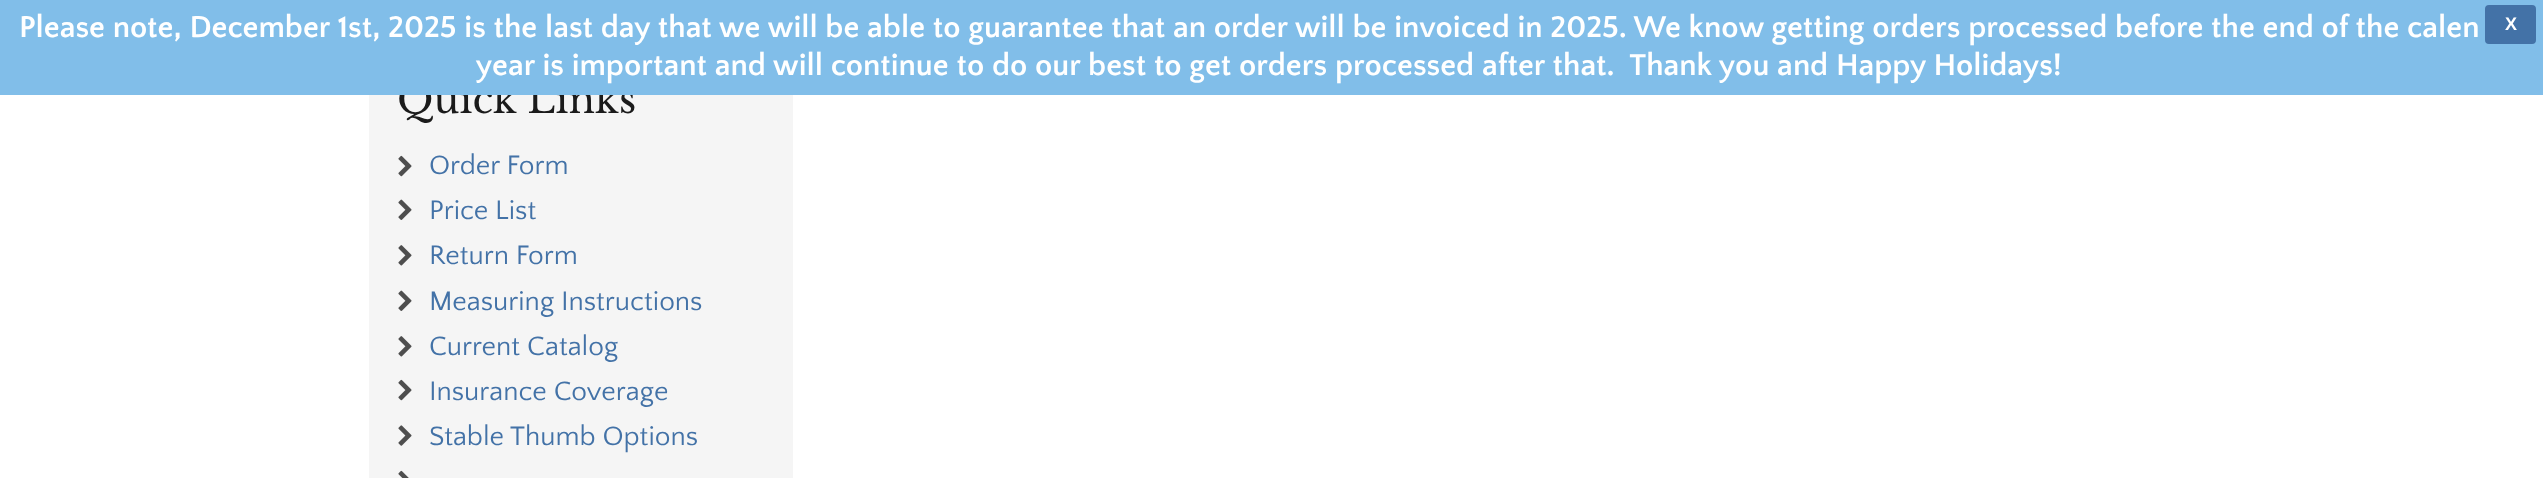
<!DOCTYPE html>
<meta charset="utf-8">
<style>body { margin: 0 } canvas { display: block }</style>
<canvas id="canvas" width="2543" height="478"></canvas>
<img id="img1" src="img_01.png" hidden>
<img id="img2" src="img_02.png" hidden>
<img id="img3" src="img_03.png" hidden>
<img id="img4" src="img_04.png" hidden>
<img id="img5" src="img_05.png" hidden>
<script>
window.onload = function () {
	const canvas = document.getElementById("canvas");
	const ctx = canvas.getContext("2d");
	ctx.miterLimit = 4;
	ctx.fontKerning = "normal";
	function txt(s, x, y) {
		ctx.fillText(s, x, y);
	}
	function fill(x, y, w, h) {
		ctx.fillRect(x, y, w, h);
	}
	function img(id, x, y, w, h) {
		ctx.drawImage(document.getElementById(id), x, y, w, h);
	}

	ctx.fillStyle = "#FFFFFF";
	fill(0, 0, 2543, 478);
	ctx.fillStyle = "#F5F5F5";
	fill(369, 95, 424, 383);
	img("img1", 398, 155, 14, 22);
	img("img2", 398, 199, 14, 21);
	img("img3", 398, 245, 14, 21);
	img("img2", 398, 290, 14, 21);
	img("img3", 398, 336, 14, 21);
	img("img1", 398, 379, 14, 22);
	img("img4", 398, 425, 14, 21);
	img("img5", 398, 470, 11, 8);
	ctx.font = "38.5px Libre Baskerville";
	ctx.fillStyle = "#1B1B1B";
	txt("Quick Links", 397, 113);
	ctx.fillStyle = "#81BEE9";
	fill(0, 0, 2543, 95);
	ctx.fillStyle = "#4372A7";
	ctx.beginPath();
	ctx.roundRect(2486, 6, 49, 37, 3);
	ctx.fill();
	ctx.strokeStyle = "#4372A7";
	ctx.lineWidth = 2;
	ctx.stroke();
	ctx.font = "bold 18px Liberation Sans";
	ctx.fillStyle = "#FFFFFF";
	txt("X", 2505, 30);
	ctx.font = "bold 31.5px Quattrocento Sans";
	txt("year is important and will continue to do our best to get orders processed after that.  Thank you and Happy Holidays!", 476, 75);
	txt("Please note, December 1st, 2025 is the last day that we will be able to guarantee that an order will be invoiced in 2025. We know getting orders processed before the end of the calen", 19, 37);
	ctx.font = "28px Quattrocento Sans";
	ctx.fillStyle = "#4372A7";
	txt("Order Form", 429, 174);
	txt("Price List", 429, 219);
	txt("Return Form", 429, 264);
	txt("Measuring Instructions", 429, 310);
	txt("Current Catalog", 429, 355);
	txt("Insurance Coverage", 429, 400);
	txt("Stable Thumb Options", 429, 445);
};
</script>
